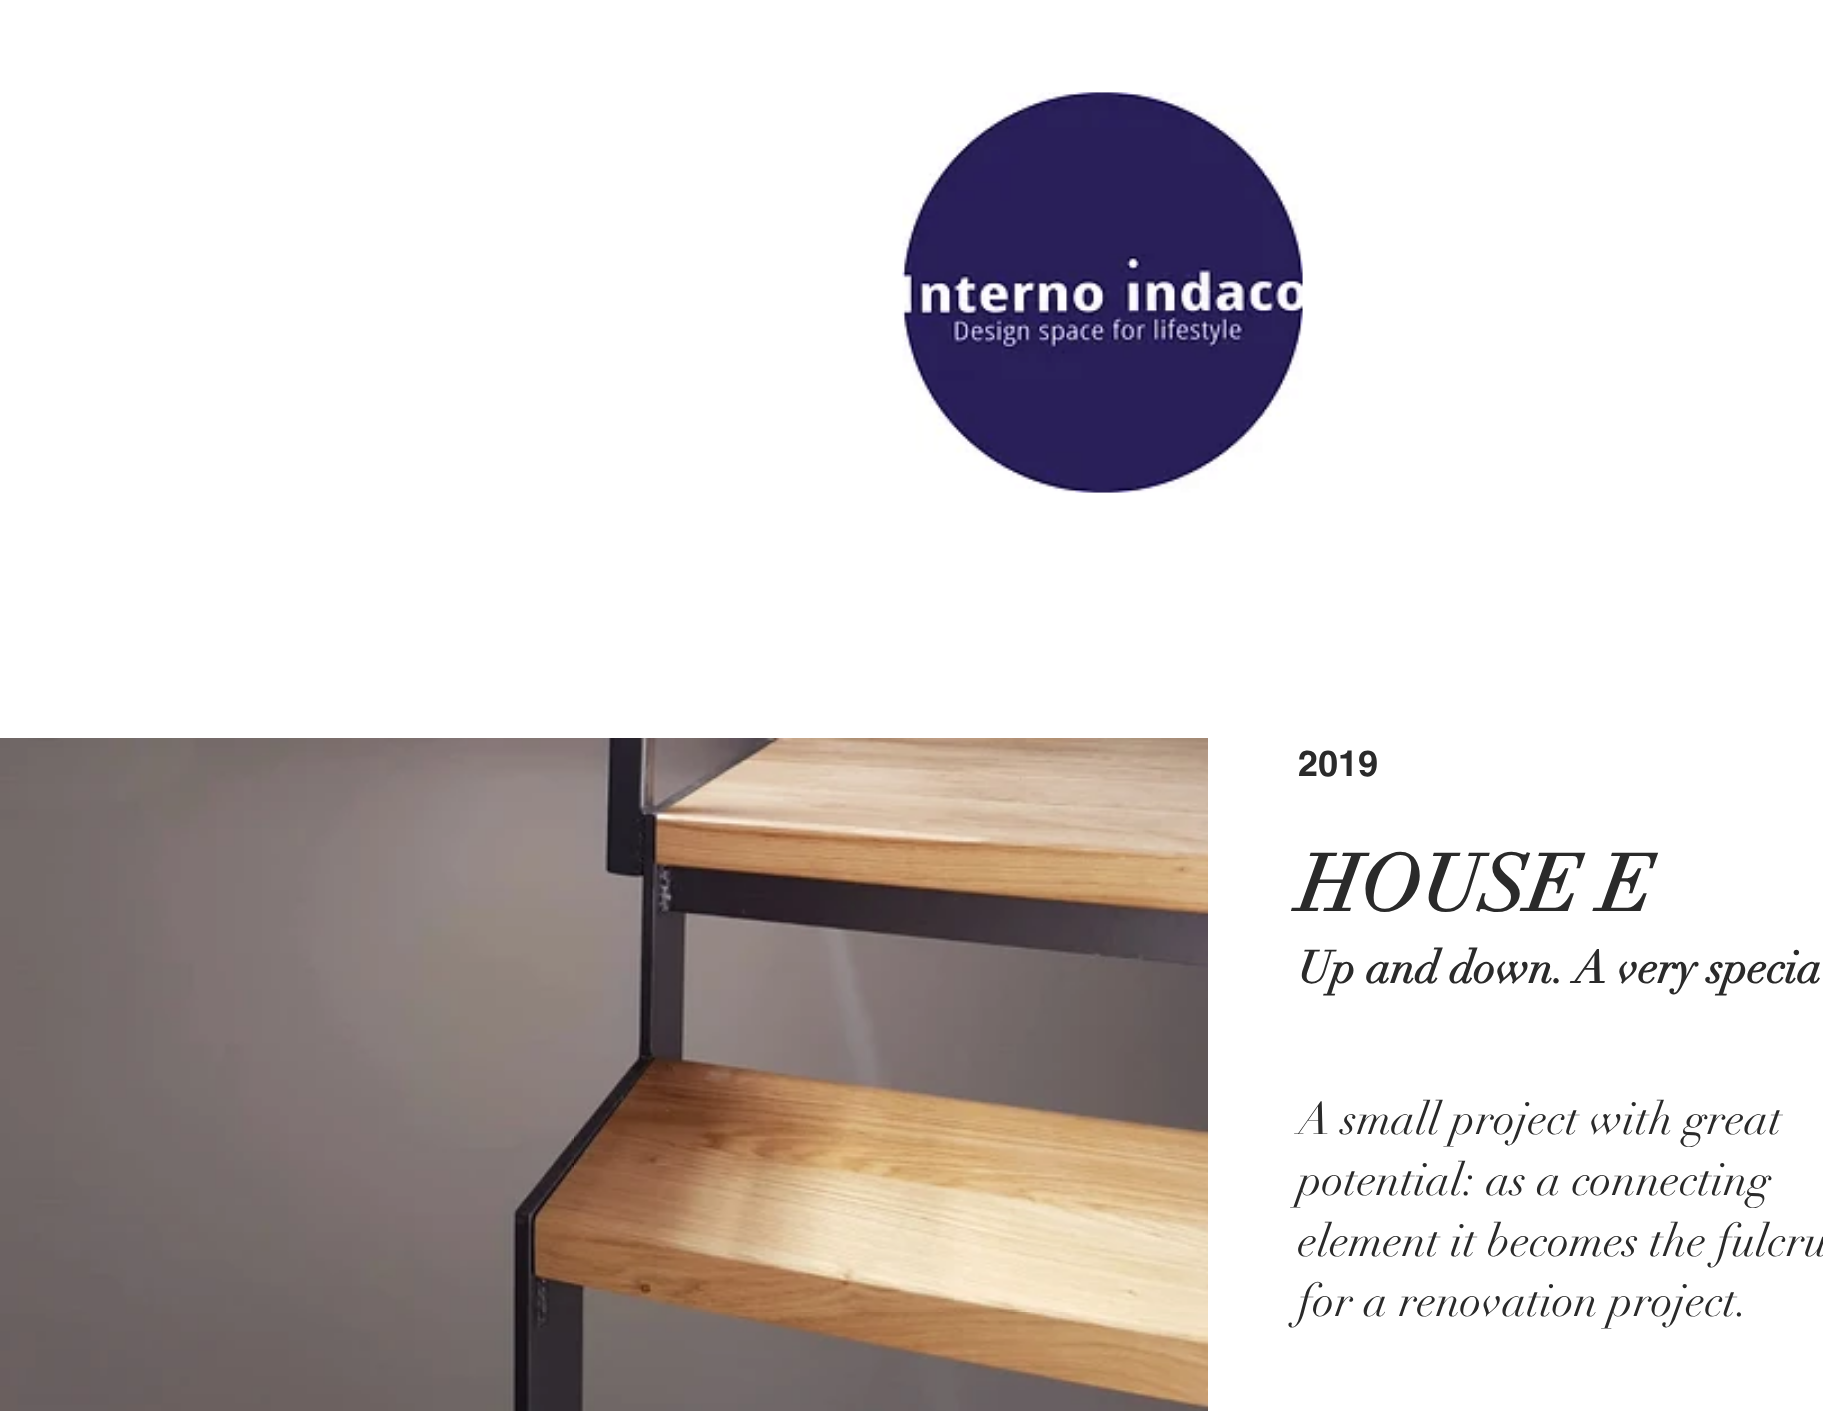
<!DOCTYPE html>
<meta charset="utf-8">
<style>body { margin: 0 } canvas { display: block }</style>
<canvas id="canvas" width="1823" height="1411"></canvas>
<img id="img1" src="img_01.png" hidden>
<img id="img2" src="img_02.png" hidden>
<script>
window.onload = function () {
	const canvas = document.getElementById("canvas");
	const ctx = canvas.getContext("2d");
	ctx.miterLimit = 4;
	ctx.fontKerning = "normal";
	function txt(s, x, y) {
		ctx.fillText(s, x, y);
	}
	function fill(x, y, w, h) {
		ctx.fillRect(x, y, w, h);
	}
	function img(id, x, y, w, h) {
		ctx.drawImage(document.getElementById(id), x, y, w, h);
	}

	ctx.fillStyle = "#FFFFFF";
	fill(0, 0, 1823, 1411);
	img("img1", 902, 92, 401, 401);
	img("img2", 0, 738, 1208, 673);
	ctx.font = "bold 36px helvetica";
	ctx.fillStyle = "#2A2A2A";
	txt("2019", 1298, 776);
	ctx.font = "bold 78.75px didot";
	txt("HOUSE E", 1298, 911);
	ctx.font = "bold 45px didot";
	txt("Up and down.", 1298, 983);
	txt("A very specia", 1574, 983);
	ctx.font = "45px didot";
	txt("A small project with great", 1298, 1134);
	txt("potential: as a connecting", 1298, 1195);
	txt("element it becomes the fulcru", 1298, 1256);
	txt("for a renovation project.", 1298, 1316);
};
</script>
